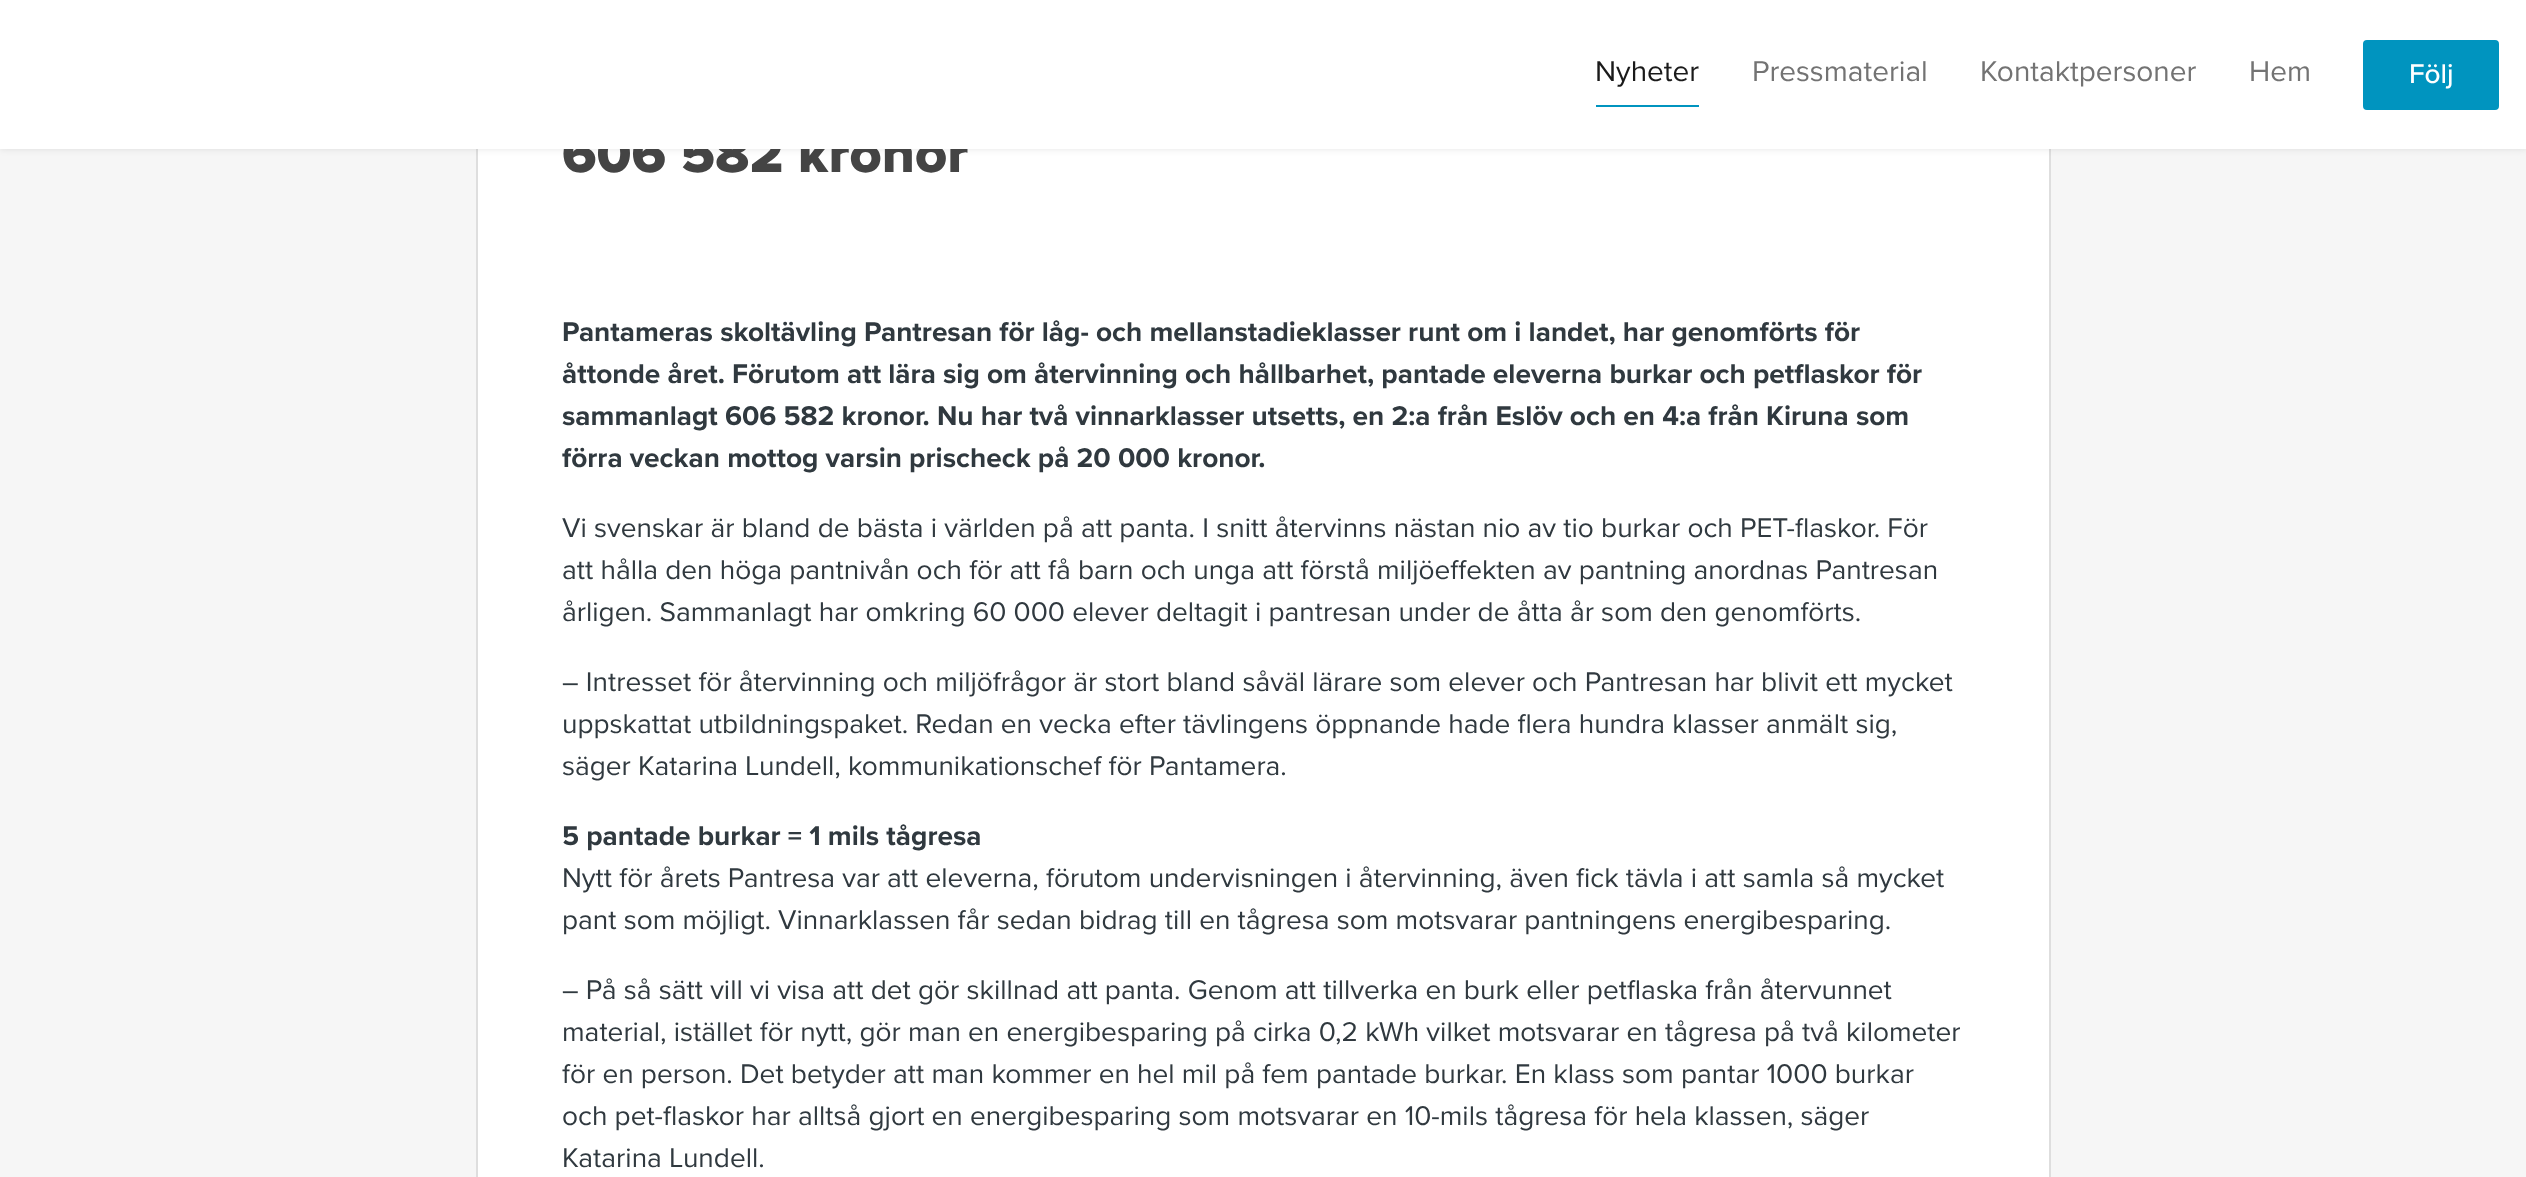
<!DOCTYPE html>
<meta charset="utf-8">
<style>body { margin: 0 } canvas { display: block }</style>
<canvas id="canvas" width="2526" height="1177"></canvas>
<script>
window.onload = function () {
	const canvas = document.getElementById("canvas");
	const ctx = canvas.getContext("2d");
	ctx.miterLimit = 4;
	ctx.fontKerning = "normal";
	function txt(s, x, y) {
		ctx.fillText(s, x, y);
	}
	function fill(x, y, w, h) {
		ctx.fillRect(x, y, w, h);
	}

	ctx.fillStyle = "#F6F6F6";
	fill(0, 0, 2526, 1177);
	ctx.fillStyle = "#FFFFFF";
	fill(478, 149, 1571, 1028);
	ctx.strokeStyle = "#DEDEDE";
	ctx.lineWidth = 2;
	ctx.strokeRect(477, -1, 1573, 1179);
	ctx.fillStyle = "rgba(0, 0, 0, 0.1)";
	ctx.filter = "blur(3.5px)";
	ctx.beginPath();
	ctx.rect(0, 0, 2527, 149);
	ctx.fill();
	ctx.filter = "none";
	ctx.font = "800 56px Proxima Nova";
	ctx.fillStyle = "#444444";
	txt("606 582 kronor", 562, 172);
	ctx.fillStyle = "#FFFFFF";
	fill(0, 0, 2526, 149);
	ctx.fillStyle = "#0094BF";
	ctx.beginPath();
	ctx.roundRect(2365, 42, 132, 66, 2);
	ctx.fill();
	ctx.strokeStyle = "#0094BF";
	ctx.lineWidth = 4;
	ctx.stroke();
	ctx.font = "500 28px Proxima Nova";
	ctx.fillStyle = "#FFFFFF";
	txt("Följ", 2409, 83);
	ctx.font = "29.75px Proxima Nova";
	ctx.fillStyle = "#737373";
	txt("Hem", 2249, 81);
	txt("Kontaktpersoner", 1980, 81);
	txt("Pressmaterial", 1752, 81);
	ctx.fillStyle = "#1A1A1A";
	txt("Nyheter", 1595, 81);
	ctx.fillStyle = "#0094BF";
	fill(1596, 105, 103, 2);
	ctx.font = "bold 28px Proxima Nova";
	ctx.fillStyle = "#30393F";
	txt("Pantameras skoltävling Pantresan för låg- och mellanstadieklasser runt om i landet, har genomförts för", 562, 341);
	txt("åttonde året. Förutom att lära sig om återvinning och hållbarhet, pantade eleverna burkar och petflaskor för", 562, 383);
	txt("sammanlagt 606 582 kronor. Nu har två vinnarklasser utsetts, en 2:a från Eslöv och en 4:a från Kiruna som", 562, 425);
	txt("förra veckan mottog varsin prischeck på 20 000 kronor.", 562, 467);
	ctx.font = "28px Proxima Nova";
	txt("Vi svenskar är bland de bästa i världen på att panta. I snitt återvinns nästan nio av tio burkar och PET-flaskor. För", 562, 537);
	txt("att hålla den höga pantnivån och för att få barn och unga att förstå miljöeffekten av pantning anordnas Pantresan", 562, 579);
	txt("årligen. Sammanlagt har omkring 60 000 elever deltagit i pantresan under de åtta år som den genomförts.", 562, 621);
	txt("– Intresset för återvinning och miljöfrågor är stort bland såväl lärare som elever och Pantresan har blivit ett mycket", 562, 691);
	txt("uppskattat utbildningspaket. Redan en vecka efter tävlingens öppnande hade flera hundra klasser anmält sig,", 562, 733);
	txt("säger Katarina Lundell, kommunikationschef för Pantamera.", 562, 775);
	ctx.font = "bold 28px Proxima Nova";
	txt("5 pantade burkar = 1 mils tågresa", 562, 845);
	ctx.font = "28px Proxima Nova";
	txt("Nytt för årets Pantresa var att eleverna, förutom undervisningen i återvinning, även fick tävla i att samla så mycket", 562, 887);
	txt("pant som möjligt. Vinnarklassen får sedan bidrag till en tågresa som motsvarar pantningens energibesparing.", 562, 929);
	txt("– På så sätt vill vi visa att det gör skillnad att panta. Genom att tillverka en burk eller petflaska från återvunnet", 562, 999);
	txt("material, istället för nytt, gör man en energibesparing på cirka 0,2 kWh vilket motsvarar en tågresa på två kilometer", 562, 1041);
	txt("för en person. Det betyder att man kommer en hel mil på fem pantade burkar. En klass som pantar 1000 burkar", 562, 1083);
	txt("och pet-flaskor har alltså gjort en energibesparing som motsvarar en 10-mils tågresa för hela klassen, säger", 562, 1125);
	txt("Katarina Lundell.", 562, 1167);
};
</script>
